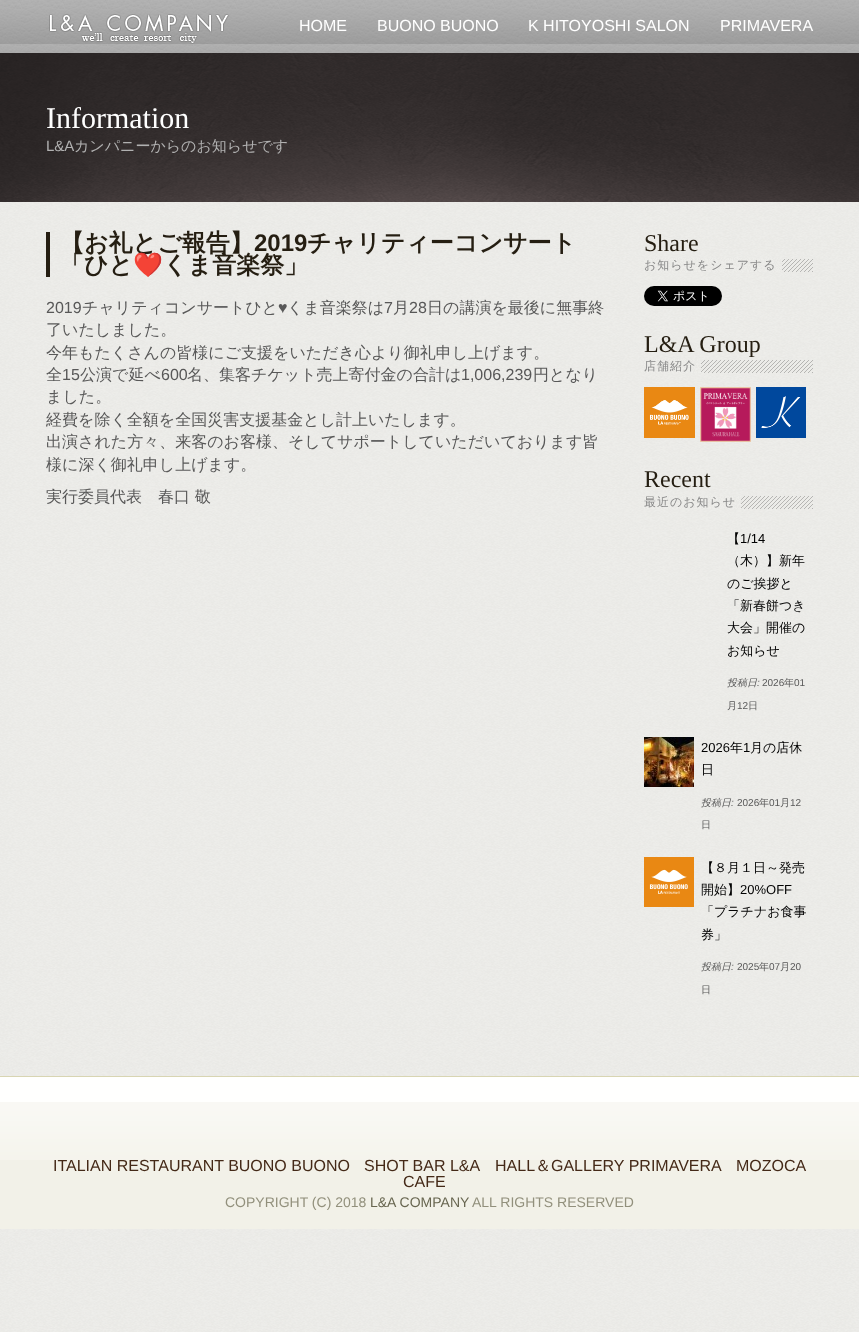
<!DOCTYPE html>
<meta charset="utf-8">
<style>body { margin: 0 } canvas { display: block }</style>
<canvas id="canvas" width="859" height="1332"></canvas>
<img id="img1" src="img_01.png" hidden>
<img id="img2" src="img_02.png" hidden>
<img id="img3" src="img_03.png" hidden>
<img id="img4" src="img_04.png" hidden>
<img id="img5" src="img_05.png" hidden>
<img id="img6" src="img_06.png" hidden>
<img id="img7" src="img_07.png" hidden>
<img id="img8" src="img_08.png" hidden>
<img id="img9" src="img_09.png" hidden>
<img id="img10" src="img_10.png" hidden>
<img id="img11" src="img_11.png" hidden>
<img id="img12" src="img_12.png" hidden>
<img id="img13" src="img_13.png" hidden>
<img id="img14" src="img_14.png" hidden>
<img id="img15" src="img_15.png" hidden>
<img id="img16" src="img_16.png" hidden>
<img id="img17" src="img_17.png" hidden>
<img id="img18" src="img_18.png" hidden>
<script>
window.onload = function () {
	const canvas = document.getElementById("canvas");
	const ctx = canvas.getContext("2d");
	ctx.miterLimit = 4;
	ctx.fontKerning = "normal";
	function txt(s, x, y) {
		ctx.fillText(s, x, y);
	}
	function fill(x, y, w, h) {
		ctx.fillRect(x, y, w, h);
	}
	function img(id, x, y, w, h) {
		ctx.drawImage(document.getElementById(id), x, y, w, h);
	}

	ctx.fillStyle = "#FFFFFF";
	fill(0, 0, 859, 1332);
	img("img1", 0, 202, 859, 1130);
	img("img2", 0, 0, 859, 7);
	img("img3", 0, 7, 859, 46);
	img("img4", 49, 14, 180, 30);
	img("img5", 0, 53, 859, 149);
	ctx.fillStyle = "#251E12";
	fill(46, 232, 4, 45);
	img("img6", 782, 259, 31, 13);
	img("img7", 644, 258, 138, 14);
	img("img8", 644, 286, 78, 20);
	img("img9", 701, 360, 112, 13);
	img("img10", 644, 359, 57, 14);
	img("img11", 644, 387, 51, 51);
	img("img12", 700, 387, 51, 55);
	img("img13", 756, 387, 50, 51);
	img("img14", 741, 496, 72, 13);
	img("img15", 644, 496, 97, 13);
	img("img16", 644, 737, 50, 50);
	img("img17", 644, 857, 50, 50);
	ctx.fillStyle = "#FFFFFE";
	fill(0, 1077, 859, 25);
	ctx.fillStyle = "#D8D5B2";
	fill(0, 1076, 859, 1);
	ctx.fillStyle = "#F2F1E8";
	fill(0, 1160, 859, 69);
	img("img18", 0, 1102, 859, 58);
	ctx.font = "16px Liberation Sans";
	ctx.fillStyle = "#FFFFFF";
	txt("HOME", 299, 31);
	txt("BUONO BUONO", 377, 31);
	txt("K HITOYOSHI SALON", 528, 31);
	txt("PRIMAVERA", 720, 31);
	ctx.font = "30px Liberation Serif";
	txt("Information", 46, 128);
	ctx.font = "15px Liberation Sans";
	ctx.fillStyle = "#B1B1B1";
	txt("L&A", 46, 151);
	ctx.font = "500 15px WenQuanYi Zen Hei";
	txt("カンパニーからのお知らせです", 74, 151);
	ctx.font = "bold 24px WenQuanYi Zen Hei";
	ctx.fillStyle = "#251E12";
	txt("【お礼とご報告】", 60, 251);
	ctx.font = "bold 24px Liberation Sans";
	txt("2019", 254, 251);
	ctx.font = "bold 24px WenQuanYi Zen Hei";
	txt("チャリティーコンサート", 307, 251);
	txt("「ひと", 60, 273);
	ctx.font = "bold 24px Noto Color Emoji";
	txt("❤️", 133, 273);
	ctx.font = "bold 24px WenQuanYi Zen Hei";
	txt("くま音楽祭」", 163, 273);
	ctx.font = "16px Liberation Sans";
	ctx.fillStyle = "#585858";
	txt("2019", 46, 313);
	ctx.font = "500 16px WenQuanYi Zen Hei";
	txt("チャリティコンサートひと", 82, 313);
	ctx.font = "16px Liberation Sans";
	txt("♥", 278, 313);
	ctx.font = "500 16px WenQuanYi Zen Hei";
	txt("くま音楽祭は", 287, 313);
	ctx.font = "16px Liberation Sans";
	txt("7", 384, 313);
	ctx.font = "500 16px WenQuanYi Zen Hei";
	txt("月", 393, 313);
	ctx.font = "16px Liberation Sans";
	txt("28", 409, 313);
	ctx.font = "500 16px WenQuanYi Zen Hei";
	txt("日の講演を最後に無事終", 427, 313);
	txt("了いたしました。", 46, 335);
	txt("今年もたくさんの皆様にご支援をいただき心より御礼申し上げます。", 46, 358);
	txt("全", 46, 380);
	ctx.font = "16px Liberation Sans";
	txt("15", 62, 380);
	ctx.font = "500 16px WenQuanYi Zen Hei";
	txt("公演で延べ", 80, 380);
	ctx.font = "16px Liberation Sans";
	txt("600", 161, 380);
	ctx.font = "500 16px WenQuanYi Zen Hei";
	txt("名、集客チケット売上寄付金の合計は", 187, 380);
	ctx.font = "16px Liberation Sans";
	txt("1,006,239", 461, 380);
	ctx.font = "500 16px WenQuanYi Zen Hei";
	txt("円となり", 533, 380);
	txt("ました。", 46, 402);
	txt("経費を除く全額を全国災害支援基金とし計上いたします。", 46, 425);
	txt("出演された方々、来客のお客様、そしてサポートしていただいております皆", 46, 447);
	txt("様に深く御礼申し上げます。", 46, 470);
	txt("実行委員代表　春口 敬", 46, 502);
	ctx.font = "24px Liberation Serif";
	ctx.fillStyle = "#251E12";
	txt("Share", 644, 251);
	ctx.letterSpacing = "1px";
	ctx.font = "500 12px WenQuanYi Zen Hei";
	ctx.fillStyle = "#888888";
	txt("お知らせをシェアする", 644, 269);
	ctx.letterSpacing = "0px";
	ctx.font = "24px Liberation Serif";
	ctx.fillStyle = "#251E12";
	txt("L&A Group", 644, 352);
	ctx.letterSpacing = "1px";
	ctx.font = "500 12px WenQuanYi Zen Hei";
	ctx.fillStyle = "#888888";
	txt("店舗紹介", 644, 370);
	ctx.letterSpacing = "0px";
	ctx.font = "24px Liberation Serif";
	ctx.fillStyle = "#251E12";
	txt("Recent", 644, 487);
	ctx.letterSpacing = "1px";
	ctx.font = "500 12px WenQuanYi Zen Hei";
	ctx.fillStyle = "#888888";
	txt("最近のお知らせ", 644, 506);
	ctx.letterSpacing = "0px";
	ctx.font = "500 13px WenQuanYi Zen Hei";
	ctx.fillStyle = "#020202";
	txt("【", 727, 543);
	ctx.font = "13px Liberation Sans";
	txt("1/14", 740, 543);
	ctx.font = "500 13px WenQuanYi Zen Hei";
	txt("（木）】新年", 727, 565);
	txt("のご挨拶と", 727, 588);
	txt("「新春餅つき", 727, 610);
	txt("大会」開催の", 727, 632);
	txt("お知らせ", 727, 655);
	ctx.font = "italic 500 10px WenQuanYi Zen Hei";
	ctx.fillStyle = "#585858";
	txt("投稿日", 727, 686);
	ctx.font = "italic 10px Liberation Sans";
	txt(":", 757, 686);
	ctx.font = "10px Liberation Sans";
	txt("2026", 762, 686);
	ctx.font = "500 10px WenQuanYi Zen Hei";
	txt("年", 784, 686);
	ctx.font = "10px Liberation Sans";
	txt("01", 794, 686);
	ctx.font = "500 10px WenQuanYi Zen Hei";
	txt("月", 727, 709);
	ctx.font = "10px Liberation Sans";
	txt("12", 737, 709);
	ctx.font = "500 10px WenQuanYi Zen Hei";
	txt("日", 748, 709);
	ctx.font = "13px Liberation Sans";
	ctx.fillStyle = "#020202";
	txt("2026", 701, 752);
	ctx.font = "500 13px WenQuanYi Zen Hei";
	txt("年", 730, 752);
	ctx.font = "13px Liberation Sans";
	txt("1", 743, 752);
	ctx.font = "500 13px WenQuanYi Zen Hei";
	txt("月の店休", 750, 752);
	txt("日", 701, 774);
	ctx.font = "italic 500 10px WenQuanYi Zen Hei";
	ctx.fillStyle = "#585858";
	txt("投稿日", 701, 806);
	ctx.font = "italic 10px Liberation Sans";
	txt(":", 731, 806);
	ctx.font = "10px Liberation Sans";
	txt("2026", 737, 806);
	ctx.font = "500 10px WenQuanYi Zen Hei";
	txt("年", 759, 806);
	ctx.font = "10px Liberation Sans";
	txt("01", 769, 806);
	ctx.font = "500 10px WenQuanYi Zen Hei";
	txt("月", 780, 806);
	ctx.font = "10px Liberation Sans";
	txt("12", 790, 806);
	ctx.font = "500 10px WenQuanYi Zen Hei";
	txt("日", 701, 828);
	ctx.font = "500 13px WenQuanYi Zen Hei";
	ctx.fillStyle = "#020202";
	txt("【８月１日～発売", 701, 872);
	txt("開始】", 701, 894);
	ctx.font = "13px Liberation Sans";
	txt("20%OFF", 740, 894);
	ctx.font = "500 13px WenQuanYi Zen Hei";
	txt("「プラチナお食事", 701, 916);
	txt("券」", 701, 939);
	ctx.font = "italic 500 10px WenQuanYi Zen Hei";
	ctx.fillStyle = "#585858";
	txt("投稿日", 701, 970);
	ctx.font = "italic 10px Liberation Sans";
	txt(":", 731, 970);
	ctx.font = "10px Liberation Sans";
	txt("2025", 737, 970);
	ctx.font = "500 10px WenQuanYi Zen Hei";
	txt("年", 759, 970);
	ctx.font = "10px Liberation Sans";
	txt("07", 769, 970);
	ctx.font = "500 10px WenQuanYi Zen Hei";
	txt("月", 780, 970);
	ctx.font = "10px Liberation Sans";
	txt("20", 790, 970);
	ctx.font = "500 10px WenQuanYi Zen Hei";
	txt("日", 701, 993);
	ctx.font = "16px Liberation Sans";
	ctx.fillStyle = "#442917";
	txt("ITALIAN RESTAURANT BUONO BUONO", 53, 1171);
	txt("SHOT BAR L&A", 364, 1171);
	txt("HALL", 495, 1171);
	ctx.font = "500 16px WenQuanYi Zen Hei";
	txt("＆", 535, 1171);
	ctx.font = "16px Liberation Sans";
	txt("GALLERY PRIMAVERA", 551, 1171);
	txt("MOZOCA", 736, 1171);
	txt("CAFE", 403, 1187);
	ctx.font = "14px Liberation Sans";
	ctx.fillStyle = "#92907C";
	txt("COPYRIGHT (C) 2018", 225, 1207);
	ctx.fillStyle = "#686650";
	txt("L&A COMPANY", 370, 1207);
	ctx.fillStyle = "#92907C";
	txt("ALL RIGHTS RESERVED", 472, 1207);
};
</script>
